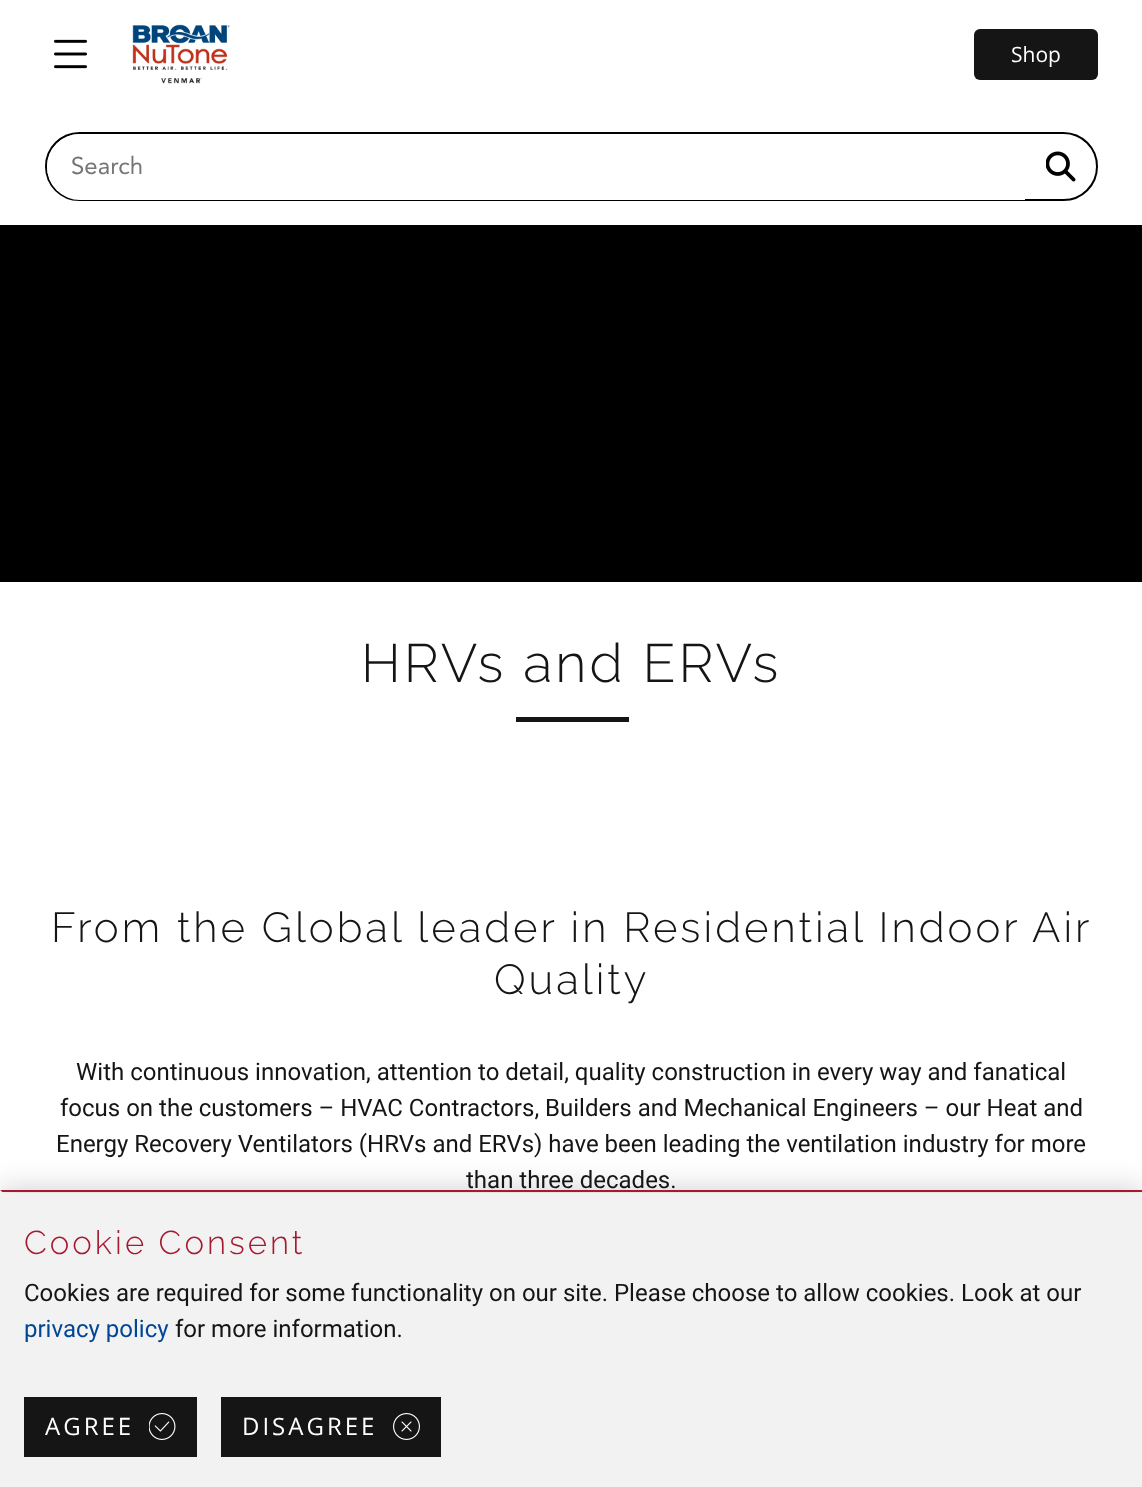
<!DOCTYPE html>
<meta charset="utf-8">
<style>body { margin: 0 } canvas { display: block }</style>
<canvas id="canvas" width="1142" height="1487"></canvas>
<img id="img1" src="img_01.png" hidden>
<img id="img2" src="img_02.png" hidden>
<img id="img3" src="img_03.png" hidden>
<img id="img4" src="img_04.png" hidden>
<img id="img5" src="img_05.png" hidden>
<img id="img6" src="img_06.png" hidden>
<script>
window.onload = function () {
	const canvas = document.getElementById("canvas");
	const ctx = canvas.getContext("2d");
	ctx.miterLimit = 4;
	ctx.fontKerning = "normal";
	function txt(s, x, y) {
		ctx.fillText(s, x, y);
	}
	function fill(x, y, w, h) {
		ctx.fillRect(x, y, w, h);
	}
	function round(x, y, w, h, r) {
		ctx.beginPath();
		ctx.roundRect(x, y, w, h, r);
		ctx.fill();
	}
	function img(id, x, y, w, h) {
		ctx.drawImage(document.getElementById(id), x, y, w, h);
	}

	ctx.fillStyle = "#FFFFFF";
	fill(0, 0, 1142, 1487);
	img("img1", 54, 39, 33, 30);
	img("img2", 132, 24, 98, 60);
	ctx.fillStyle = "#151515";
	round(974, 29, 124, 51, 6);
	ctx.beginPath();
	ctx.roundRect(46, 133, 1051, 67, 33.5);
	ctx.strokeStyle = "#000000";
	ctx.lineWidth = 2;
	ctx.stroke();
	ctx.fillStyle = "#FFFFFF";
	ctx.beginPath();
	ctx.roundRect(47, 134, 978, 66, [33, 0, 0, 33]);
	ctx.fill();
	img("img3", 1046, 151, 30, 31);
	ctx.fillStyle = "#000000";
	fill(0, 225, 1142, 357);
	ctx.fillStyle = "#151515";
	fill(516, 717, 113, 5);
	img("img4", 1, 1486, 1, 1);
	ctx.fillStyle = "rgba(0, 0, 0, 0.2)";
	ctx.filter = "blur(15px)";
	ctx.beginPath();
	ctx.rect(0, 1190, 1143, 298);
	ctx.fill();
	ctx.filter = "none";
	ctx.fillStyle = "#F2F2F3";
	fill(2, 1193, 1140, 294);
	ctx.fillStyle = "#A6192E";
	ctx.beginPath();
	ctx.moveTo(0, 1190);
	ctx.lineTo(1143, 1190);
	ctx.lineTo(1142, 1192);
	ctx.lineTo(2, 1192);
	ctx.closePath();
	ctx.fill();
	ctx.fillStyle = "#F2F2F3";
	ctx.beginPath();
	ctx.moveTo(0, 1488);
	ctx.lineTo(0, 1190);
	ctx.lineTo(2, 1192);
	ctx.lineTo(2, 1486);
	ctx.closePath();
	ctx.fill();
	ctx.fillStyle = "#151515";
	fill(24, 1397, 173, 60);
	img("img5", 149, 1413, 27, 27);
	fill(221, 1397, 220, 60);
	img("img6", 393, 1413, 27, 27);
	ctx.font = "21px Open Sans";
	ctx.fillStyle = "#FFFFFF";
	txt("Shop", 1011, 62);
	ctx.font = "24px Avenir";
	ctx.fillStyle = "#757575";
	txt("Search", 71, 174);
	ctx.letterSpacing = "3px";
	ctx.font = "100 54px Raleway";
	ctx.fillStyle = "#151515";
	txt("HRVs and ERVs", 361, 682);
	ctx.font = "100 42px Raleway";
	txt("From the Global leader in Residential Indoor Air", 51, 942);
	txt("Quality", 494, 994);
	ctx.letterSpacing = "0px";
	ctx.font = "24px Roboto";
	txt("With continuous innovation, attention to detail, quality construction in every way and fanatical", 76, 1080);
	txt("focus on the customers – HVAC Contractors, Builders and Mechanical Engineers – our Heat and", 60, 1116);
	txt("Energy Recovery Ventilators (HRVs and ERVs) have been leading the ventilation industry for more", 56, 1152);
	txt("than three decades.", 466, 1188);
	ctx.letterSpacing = "3px";
	ctx.font = "100 33px Raleway";
	ctx.fillStyle = "#A6192E";
	txt("Cookie Consent", 24, 1254);
	ctx.letterSpacing = "0px";
	ctx.font = "24px Roboto";
	ctx.fillStyle = "#151515";
	txt("Cookies are required for some functionality on our site. Please choose to allow cookies. Look at our", 24, 1301);
	ctx.fillStyle = "#004695";
	txt("privacy policy", 24, 1337);
	ctx.fillStyle = "#151515";
	txt("for more information.", 175, 1337);
	ctx.letterSpacing = "3px";
	ctx.font = "24px Open Sans";
	ctx.fillStyle = "#FFFFFF";
	txt("AGREE", 45, 1435);
	txt("DISAGREE", 242, 1435);
};
</script>
